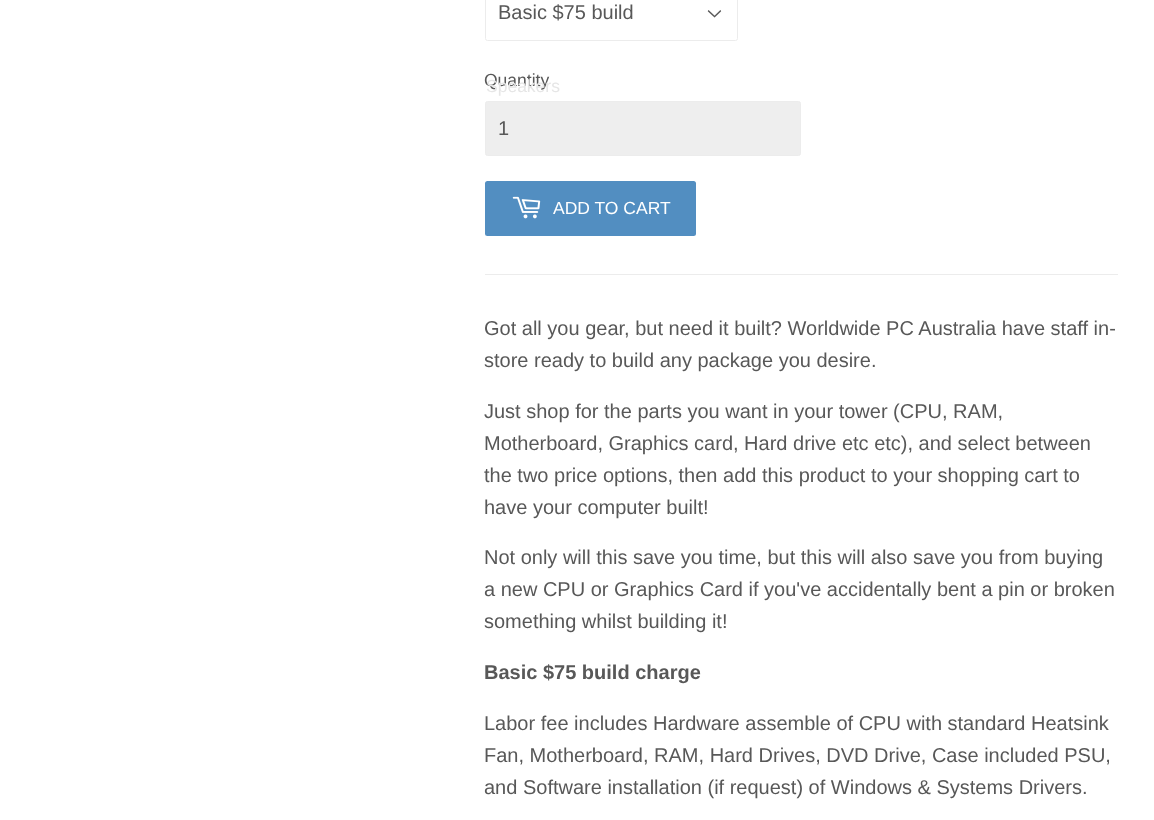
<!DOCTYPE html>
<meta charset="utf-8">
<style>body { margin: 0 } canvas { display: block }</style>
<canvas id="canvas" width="1154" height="820"></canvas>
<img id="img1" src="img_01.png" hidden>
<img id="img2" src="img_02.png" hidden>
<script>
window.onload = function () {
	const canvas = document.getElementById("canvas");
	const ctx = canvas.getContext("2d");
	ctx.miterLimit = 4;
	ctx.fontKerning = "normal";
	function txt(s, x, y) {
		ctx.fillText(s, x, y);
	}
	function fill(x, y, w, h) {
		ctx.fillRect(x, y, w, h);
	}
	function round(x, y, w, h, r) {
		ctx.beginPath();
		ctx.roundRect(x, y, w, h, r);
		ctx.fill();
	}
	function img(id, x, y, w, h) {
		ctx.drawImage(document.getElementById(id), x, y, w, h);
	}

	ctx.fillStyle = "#FFFFFF";
	fill(0, 0, 1154, 820);
	img("img1", 707, 10, 15, 8);
	ctx.beginPath();
	ctx.roundRect(485.5, -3.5, 252, 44, 2);
	ctx.strokeStyle = "#ECECEC";
	ctx.stroke();
	ctx.fillStyle = "#EEEEEE";
	ctx.beginPath();
	ctx.roundRect(485.5, 101.5, 315, 54, 2);
	ctx.fill();
	ctx.stroke();
	ctx.fillStyle = "#528EC1";
	round(485, 181, 211, 55, 2.5);
	img("img2", 512, 196, 29, 23);
	ctx.fillStyle = "#ECECEC";
	fill(485, 274, 633, 1);
	ctx.font = "20px Liberation Sans";
	ctx.fillStyle = "#585858";
	txt("Basic $75 build", 498, 19);
	ctx.font = "17.5px Liberation Sans";
	txt("Quantity", 484, 86);
	ctx.font = "20px Liberation Sans";
	txt("1", 498, 135);
	ctx.font = "17.5px Liberation Sans";
	ctx.fillStyle = "#FFFFFF";
	txt("ADD TO CART", 553, 214);
	ctx.font = "20px Liberation Sans";
	ctx.fillStyle = "#585858";
	txt("Got all you gear, but need it built? Worldwide PC Australia have staff in-", 484, 335);
	txt("store ready to build any package you desire.", 484, 367);
	txt("Just shop for the parts you want in your tower (CPU, RAM,", 484, 418);
	txt("Motherboard, Graphics card, Hard drive etc etc), and select between", 484, 450);
	txt("the two price options, then add this product to your shopping cart to", 484, 482);
	txt("have your computer built!", 484, 514);
	txt("Not only will this save you time, but this will also save you from buying", 484, 564);
	txt("a new CPU or Graphics Card if you've accidentally bent a pin or broken", 484, 596);
	txt("something whilst building it!", 484, 628);
	ctx.font = "bold 20px Liberation Sans";
	txt("Basic $75 build charge", 484, 679);
	ctx.font = "20px Liberation Sans";
	txt("Labor fee includes Hardware assemble of CPU with standard Heatsink", 484, 730);
	txt("Fan, Motherboard, RAM, Hard Drives, DVD Drive, Case included PSU,", 484, 762);
	txt("and Software installation (if request) of Windows & Systems Drivers.", 484, 794);
	ctx.font = "17.5px Liberation Sans";
	ctx.fillStyle = "#E6E6E6";
	txt("Speakers", 486, 92);
};
</script>
